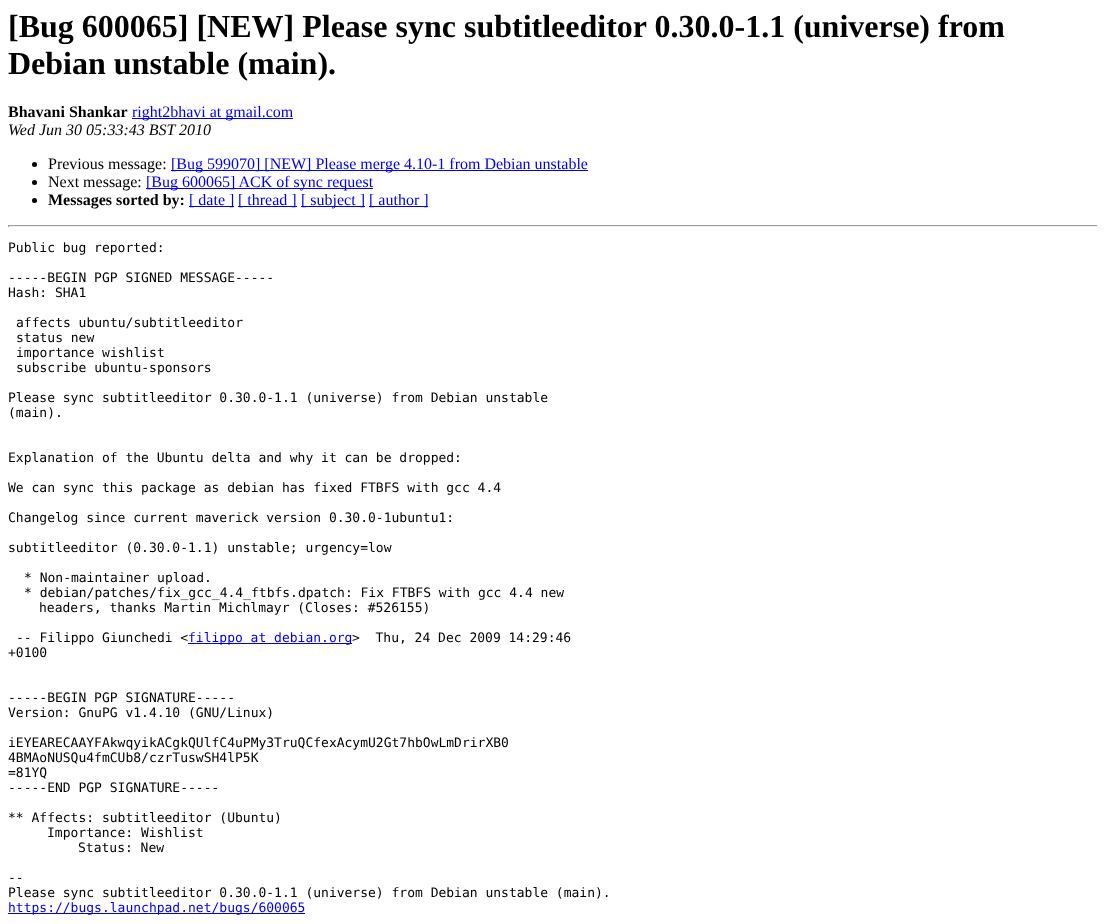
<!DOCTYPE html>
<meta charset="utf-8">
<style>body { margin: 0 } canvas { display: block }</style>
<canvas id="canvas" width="1106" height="924"></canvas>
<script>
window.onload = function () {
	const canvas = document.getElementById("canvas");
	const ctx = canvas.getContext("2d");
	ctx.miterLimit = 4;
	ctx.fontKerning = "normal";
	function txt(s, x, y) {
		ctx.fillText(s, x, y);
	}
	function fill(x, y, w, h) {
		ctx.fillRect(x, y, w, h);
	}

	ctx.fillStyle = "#FFFFFF";
	fill(0, 0, 1106, 924);
	ctx.fillStyle = "#0000EE";
	fill(132, 118, 161, 1);
	ctx.fillStyle = "#000000";
	ctx.beginPath();
	ctx.arc(34.5, 164.5, 2.5, 0, Math.PI * 2);
	ctx.fill();
	ctx.fillStyle = "#0000EE";
	fill(171, 170, 417, 1);
	ctx.fillStyle = "#000000";
	ctx.beginPath();
	ctx.arc(34.5, 182.5, 2.5, 0, Math.PI * 2);
	ctx.fill();
	ctx.fillStyle = "#0000EE";
	fill(146, 188, 227, 1);
	ctx.fillStyle = "#000000";
	ctx.beginPath();
	ctx.arc(34.5, 200.5, 2.5, 0, Math.PI * 2);
	ctx.fill();
	ctx.fillStyle = "#0000EE";
	fill(189, 206, 45, 1);
	fill(238, 206, 59, 1);
	fill(301, 206, 64, 1);
	fill(369, 206, 59, 1);
	ctx.fillStyle = "#9F9F9F";
	fill(8, 225, 1090, 1);
	ctx.fillStyle = "#EEEEEE";
	fill(1097, 225, 1, 2);
	fill(8, 226, 1090, 1);
	ctx.fillStyle = "#9F9F9F";
	fill(8, 225, 1, 2);
	ctx.fillStyle = "#0000EE";
	fill(188, 643, 164, 1);
	fill(8, 913, 297, 1);
	ctx.font = "bold 32px Liberation Serif";
	ctx.fillStyle = "#000000";
	txt("[Bug 600065] [NEW] Please sync subtitleeditor 0.30.0-1.1 (universe) from", 8, 37);
	txt("Debian unstable (main).", 8, 74);
	ctx.font = "bold 16px Liberation Serif";
	txt("Bhavani Shankar", 8, 117);
	ctx.font = "16px Liberation Serif";
	ctx.fillStyle = "#0000EE";
	txt("right2bhavi at gmail.com", 132, 117);
	ctx.font = "italic 16px Liberation Serif";
	ctx.fillStyle = "#000000";
	txt("Wed Jun 30 05:33:43 BST 2010", 8, 135);
	ctx.font = "16px Liberation Serif";
	txt("Previous message:", 48, 169);
	ctx.fillStyle = "#0000EE";
	txt("[Bug 599070] [NEW] Please merge 4.10-1 from Debian unstable", 171, 169);
	ctx.fillStyle = "#000000";
	txt("Next message:", 48, 187);
	ctx.fillStyle = "#0000EE";
	txt("[Bug 600065] ACK of sync request", 146, 187);
	ctx.font = "bold 16px Liberation Serif";
	ctx.fillStyle = "#000000";
	txt("Messages sorted by:", 48, 205);
	ctx.font = "16px Liberation Serif";
	ctx.fillStyle = "#0000EE";
	txt("[ date ]", 189, 205);
	txt("[ thread ]", 238, 205);
	txt("[ subject ]", 301, 205);
	txt("[ author ]", 369, 205);
	ctx.font = "13px DejaVu Sans Mono";
	ctx.fillStyle = "#000000";
	txt("Public bug reported:", 8, 252);
	txt("-----BEGIN PGP SIGNED MESSAGE-----", 8, 282);
	txt("Hash: SHA1", 8, 297);
	txt("affects ubuntu/subtitleeditor", 16, 327);
	txt("status new", 16, 342);
	txt("importance wishlist", 16, 357);
	txt("subscribe ubuntu-sponsors", 16, 372);
	txt("Please sync subtitleeditor 0.30.0-1.1 (universe) from Debian unstable", 8, 402);
	txt("(main).", 8, 417);
	txt("Explanation of the Ubuntu delta and why it can be dropped:", 8, 462);
	txt("We can sync this package as debian has fixed FTBFS with gcc 4.4", 8, 492);
	txt("Changelog since current maverick version 0.30.0-1ubuntu1:", 8, 522);
	txt("subtitleeditor (0.30.0-1.1) unstable; urgency=low", 8, 552);
	txt("* Non-maintainer upload.", 24, 582);
	txt("* debian/patches/fix_gcc_4.4_ftbfs.dpatch: Fix FTBFS with gcc 4.4 new", 24, 597);
	txt("headers, thanks Martin Michlmayr (Closes: #526155)", 39, 612);
	txt("-- Filippo Giunchedi <", 16, 642);
	ctx.fillStyle = "#0000EE";
	txt("filippo at debian.org", 188, 642);
	ctx.fillStyle = "#000000";
	txt(">  Thu, 24 Dec 2009 14:29:46", 352, 642);
	txt("+0100", 8, 657);
	txt("-----BEGIN PGP SIGNATURE-----", 8, 702);
	txt("Version: GnuPG v1.4.10 (GNU/Linux)", 8, 717);
	txt("iEYEARECAAYFAkwqyikACgkQUlfC4uPMy3TruQCfexAcymU2Gt7hbOwLmDrirXB0", 8, 747);
	txt("4BMAoNUSQu4fmCUb8/czrTuswSH4lP5K", 8, 762);
	txt("=81YQ", 8, 777);
	txt("-----END PGP SIGNATURE-----", 8, 792);
	txt("** Affects: subtitleeditor (Ubuntu)", 8, 822);
	txt("Importance: Wishlist", 47, 837);
	txt("Status: New", 78, 852);
	txt("--", 8, 882);
	txt("Please sync subtitleeditor 0.30.0-1.1 (universe) from Debian unstable (main).", 8, 897);
	ctx.fillStyle = "#0000EE";
	txt("https://bugs.launchpad.net/bugs/600065", 8, 912);
};
</script>
